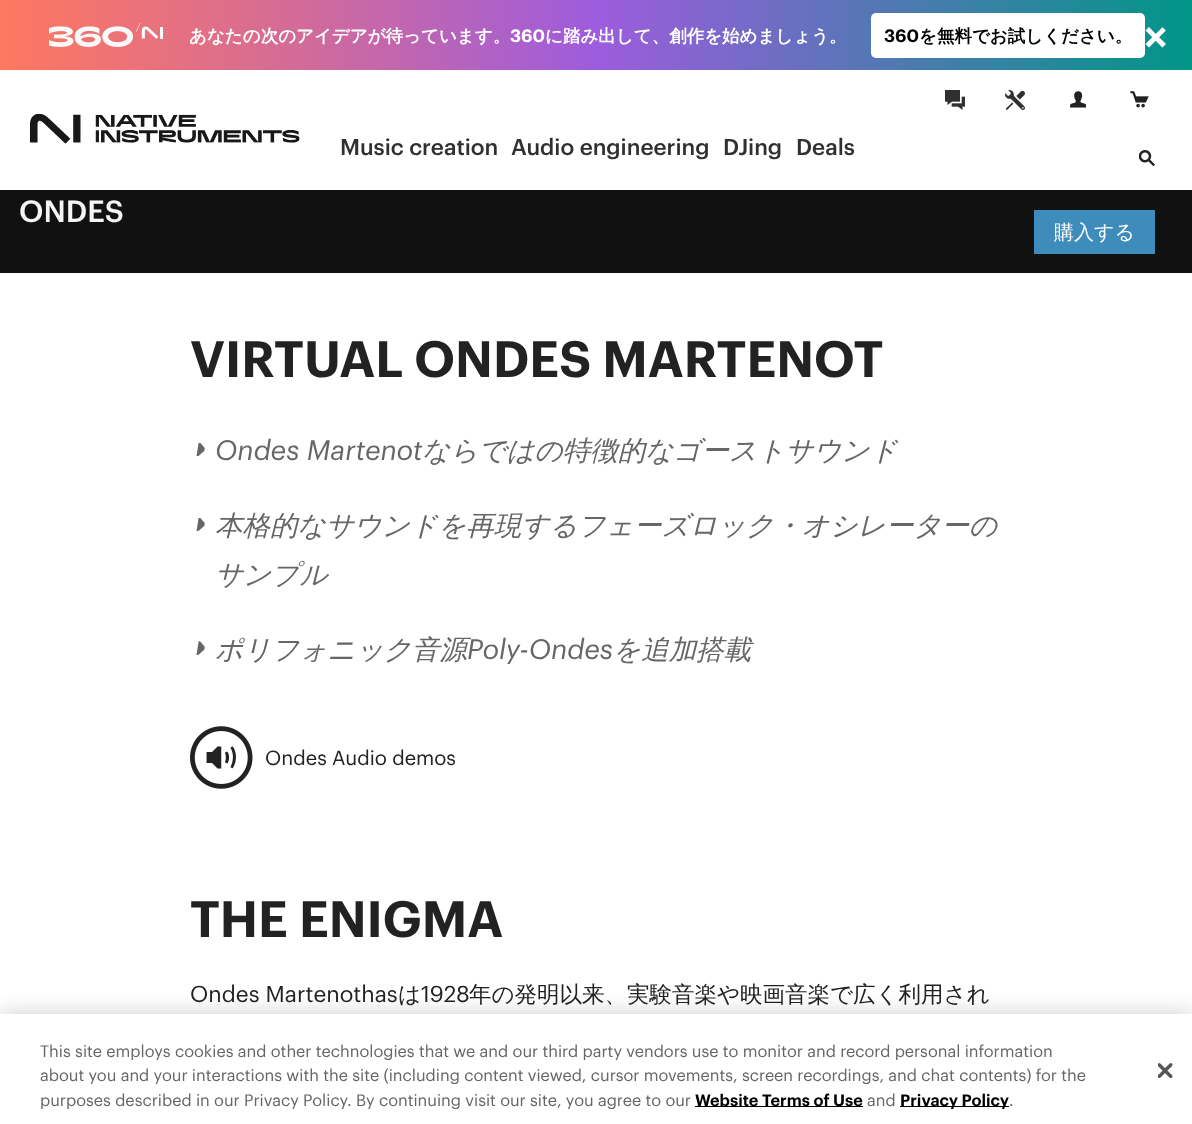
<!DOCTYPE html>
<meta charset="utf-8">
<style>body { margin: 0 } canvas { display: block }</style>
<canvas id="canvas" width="1192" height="1124"></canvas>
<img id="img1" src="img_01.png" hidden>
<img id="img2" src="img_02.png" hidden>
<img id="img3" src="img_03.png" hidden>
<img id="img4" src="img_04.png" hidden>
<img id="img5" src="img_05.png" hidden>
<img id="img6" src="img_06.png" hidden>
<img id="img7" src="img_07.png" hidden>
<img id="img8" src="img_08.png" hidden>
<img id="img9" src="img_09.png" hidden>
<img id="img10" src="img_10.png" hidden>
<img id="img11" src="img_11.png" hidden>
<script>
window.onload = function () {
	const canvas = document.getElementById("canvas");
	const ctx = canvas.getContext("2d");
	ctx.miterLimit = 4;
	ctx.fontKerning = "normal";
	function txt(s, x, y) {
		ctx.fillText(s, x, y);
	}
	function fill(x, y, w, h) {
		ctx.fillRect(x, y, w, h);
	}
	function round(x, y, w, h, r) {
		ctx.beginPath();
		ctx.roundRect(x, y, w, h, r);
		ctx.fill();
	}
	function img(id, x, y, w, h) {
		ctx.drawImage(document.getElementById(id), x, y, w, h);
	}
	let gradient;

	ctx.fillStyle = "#FFFFFF";
	fill(0, 0, 1192, 1124);
	gradient = ctx.createLinearGradient(0, 35, 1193, 35);
	gradient.addColorStop(0, "#FF785F");
	gradient.addColorStop(0.25, "#D36B98");
	gradient.addColorStop(0.5, "#9D5CDD");
	gradient.addColorStop(0.75, "#4F79B2");
	gradient.addColorStop(1, "#009687");
	ctx.fillStyle = gradient;
	fill(0, 0, 1192, 70);
	img("img1", 49, 23, 114, 24);
	ctx.fillStyle = "#FFFFFF";
	round(871, 13, 274, 45, 5);
	img("img2", 30, 114, 270, 30);
	img("img3", 945, 90, 20, 20);
	img("img4", 1005, 90, 20, 20);
	img("img5", 1070, 91, 16, 17);
	img("img6", 1130, 91, 19, 17);
	img("img7", 1139, 150, 16, 16);
	ctx.fillStyle = "#111111";
	fill(0, 190, 1192, 83);
	ctx.fillStyle = "#3E8CBB";
	fill(1034, 210, 121, 44);
	img("img8", 196, 443, 9, 13);
	img("img8", 196, 518, 9, 13);
	img("img9", 196, 641, 9, 14);
	img("img10", 190, 726, 63, 63);
	ctx.fillStyle = "rgba(0, 0, 0, 0.2)";
	ctx.filter = "blur(11px)";
	ctx.beginPath();
	ctx.rect(0, 1014, 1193, 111);
	ctx.fill();
	ctx.filter = "none";
	ctx.fillStyle = "#FFFFFF";
	fill(0, 1014, 1192, 110);
	ctx.fillStyle = "#000000";
	fill(695, 1106, 168, 1);
	fill(900, 1106, 109, 1);
	img("img11", 1158, 1063, 15, 15);
	ctx.font = "bold 17.5px WenQuanYi Zen Hei";
	ctx.fillStyle = "#FFFFFF";
	txt("あなたの次のアイデアが待っています。", 189, 42);
	ctx.font = "600 17.5px Graphik";
	txt("360", 510, 42);
	ctx.font = "bold 17.5px WenQuanYi Zen Hei";
	txt("に踏み出して、創作を始めましょう。", 545, 42);
	ctx.font = "600 17.5px Graphik";
	ctx.fillStyle = "#000000";
	txt("360", 884, 42);
	ctx.font = "bold 17.5px WenQuanYi Zen Hei";
	txt("を無料でお試しください。", 919, 42);
	ctx.font = "600 44px Graphik";
	ctx.fillStyle = "#FFFFFF";
	txt("×", 1144, 52);
	ctx.font = "500 22.5px Graphik";
	ctx.fillStyle = "#303030";
	txt("Music creation", 340, 155);
	txt("Audio engineering", 511, 155);
	txt("DJing", 723, 155);
	txt("Deals", 796, 155);
	ctx.font = "500 30px Graphik";
	ctx.fillStyle = "#F5F5F5";
	txt("ONDES", 19, 222);
	ctx.font = "500 20px WenQuanYi Zen Hei";
	ctx.fillStyle = "#FFFFFF";
	txt("購入する", 1054, 239);
	ctx.font = "600 50px Graphik";
	ctx.fillStyle = "#222222";
	txt("VIRTUAL ONDES MARTENOT", 190, 377);
	ctx.font = "italic 27.5px Graphik";
	ctx.fillStyle = "#666666";
	txt("Ondes Martenot", 215, 460);
	ctx.font = "italic 500 27.5px WenQuanYi Zen Hei";
	txt("ならではの特徴的なゴーストサウンド", 422, 460);
	txt("本格的なサウンドを再現するフェーズロック・オシレーターの", 215, 535);
	txt("サンプル", 215, 584);
	txt("ポリフォニック音源", 215, 659);
	ctx.font = "italic 27.5px Graphik";
	txt("Poly-Ondes", 467, 659);
	ctx.font = "italic 500 27.5px WenQuanYi Zen Hei";
	txt("を追加搭載", 613, 659);
	ctx.font = "20px Graphik";
	ctx.fillStyle = "#222222";
	txt("Ondes Audio demos", 265, 765);
	ctx.font = "600 50px Graphik";
	txt("THE ENIGMA", 190, 937);
	ctx.font = "22.5px Graphik";
	txt("Ondes Martenothas", 190, 1002);
	ctx.font = "500 22.5px WenQuanYi Zen Hei";
	txt("は", 398, 1002);
	ctx.font = "22.5px Graphik";
	txt("1928", 421, 1002);
	ctx.font = "500 22.5px WenQuanYi Zen Hei";
	txt("年の発明以来、実験音楽や映画音楽で広く利用され", 469, 1002);
	ctx.font = "16.25px Graphik";
	ctx.fillStyle = "#666666";
	txt("This site employs cookies and other technologies that we and our third party vendors use to monitor and record personal information", 40, 1057);
	txt("about you and your interactions with the site (including content viewed, cursor movements, screen recordings, and chat contents) for the", 40, 1081);
	txt("purposes described in our Privacy Policy. By continuing visit our site, you agree to our", 40, 1106);
	ctx.font = "600 16.25px Graphik";
	ctx.fillStyle = "#000000";
	txt("Website Terms of Use", 695, 1106);
	ctx.font = "16.25px Graphik";
	ctx.fillStyle = "#666666";
	txt("and", 867, 1106);
	ctx.font = "600 16.25px Graphik";
	ctx.fillStyle = "#000000";
	txt("Privacy Policy", 900, 1106);
	ctx.font = "16.25px Graphik";
	ctx.fillStyle = "#666666";
	txt(".", 1009, 1106);
};
</script>
